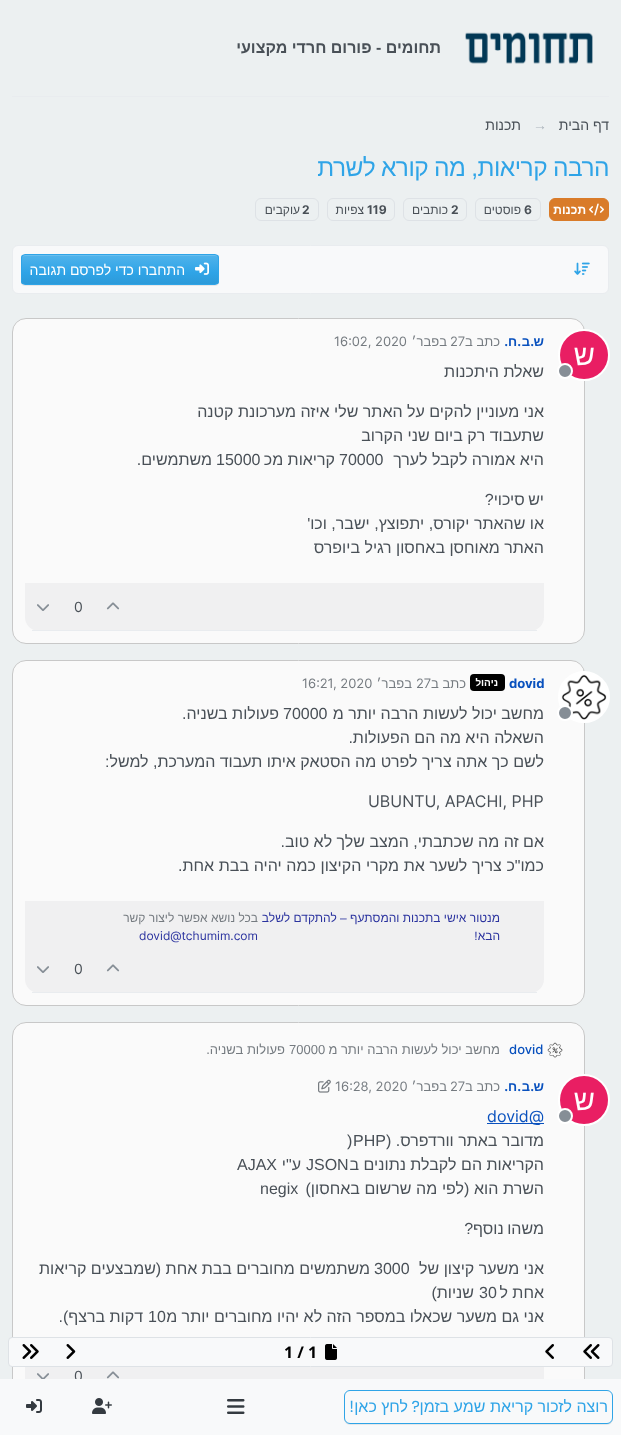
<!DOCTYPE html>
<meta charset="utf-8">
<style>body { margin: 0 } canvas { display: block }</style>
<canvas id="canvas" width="621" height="1435"></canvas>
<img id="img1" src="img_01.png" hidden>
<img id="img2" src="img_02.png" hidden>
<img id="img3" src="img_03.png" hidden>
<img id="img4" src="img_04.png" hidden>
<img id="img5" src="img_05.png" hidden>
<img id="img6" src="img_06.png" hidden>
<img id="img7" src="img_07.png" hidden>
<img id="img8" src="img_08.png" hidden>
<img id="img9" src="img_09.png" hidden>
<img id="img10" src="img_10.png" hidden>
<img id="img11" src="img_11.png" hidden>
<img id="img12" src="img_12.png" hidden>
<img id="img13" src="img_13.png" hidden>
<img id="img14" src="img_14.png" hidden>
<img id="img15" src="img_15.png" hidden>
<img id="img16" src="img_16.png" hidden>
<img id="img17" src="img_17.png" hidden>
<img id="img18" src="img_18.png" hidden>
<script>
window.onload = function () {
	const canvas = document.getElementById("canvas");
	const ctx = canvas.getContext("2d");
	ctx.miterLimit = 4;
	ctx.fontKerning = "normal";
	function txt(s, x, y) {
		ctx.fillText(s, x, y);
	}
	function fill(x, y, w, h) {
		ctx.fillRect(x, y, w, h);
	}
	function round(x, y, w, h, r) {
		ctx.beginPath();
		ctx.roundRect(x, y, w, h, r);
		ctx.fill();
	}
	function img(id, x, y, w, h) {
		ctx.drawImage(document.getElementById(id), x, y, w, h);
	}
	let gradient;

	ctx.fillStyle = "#ECF0F1";
	fill(0, 0, 621, 1435);
	ctx.fillStyle = "#E9ECEF";
	fill(12, 96, 597, 1);
	img("img1", 465, 32, 128, 32);
	ctx.fillStyle = "#D97B29";
	ctx.beginPath();
	ctx.roundRect(549.5, 198.5, 59, 22, 5.5);
	ctx.fill();
	ctx.strokeStyle = "#D97B29";
	ctx.stroke();
	img("img2", 589, 203, 15, 13);
	ctx.beginPath();
	ctx.roundRect(475.5, 198.5, 65, 22, 5.5);
	ctx.strokeStyle = "#DEE2E6";
	ctx.stroke();
	ctx.beginPath();
	ctx.roundRect(403.5, 198.5, 63, 22, 5.5);
	ctx.stroke();
	ctx.beginPath();
	ctx.roundRect(327.5, 198.5, 67, 22, 5.5);
	ctx.stroke();
	ctx.beginPath();
	ctx.roundRect(255.5, 198.5, 63, 22, 5.5);
	ctx.stroke();
	ctx.fillStyle = "#F8F9FA";
	ctx.beginPath();
	ctx.roundRect(12.5, 245.5, 596, 48, 5.5);
	ctx.fill();
	ctx.strokeStyle = "#E9ECEF";
	ctx.stroke();
	img("img3", 574, 262, 16, 13);
	ctx.fillStyle = "rgba(0, 0, 0, 0.07)";
	ctx.filter = "blur(0.5px)";
	ctx.beginPath();
	ctx.roundRect(21, 255, 198, 31, 4);
	ctx.fill();
	ctx.filter = "none";
	ctx.save();
	ctx.beginPath();
	ctx.roundRect(21, 254, 198, 31, 4);
	ctx.clip();
	gradient = ctx.createLinearGradient(120, 255, 120, 284);
	gradient.addColorStop(0, "#50B3EB");
	gradient.addColorStop(0.6, "#2FA4E7");
	gradient.addColorStop(1, "#2C9AD9");
	ctx.fillStyle = gradient;
	fill(21, 255, 198, 29);
	ctx.restore();
	ctx.fillStyle = "#69BEEE";
	ctx.beginPath();
	ctx.moveTo(25, 256);
	ctx.lineTo(215, 256);
	ctx.bezierCurveTo(217, 256, 218, 257, 218, 259);
	ctx.bezierCurveTo(218, 257, 217, 255, 215, 255);
	ctx.lineTo(25, 255);
	ctx.bezierCurveTo(23, 255, 22, 257, 22, 259);
	ctx.bezierCurveTo(22, 257, 23, 256, 25, 256);
	ctx.closePath();
	ctx.fill();
	ctx.beginPath();
	ctx.roundRect(21.5, 254.5, 197, 30, 3.5);
	ctx.strokeStyle = "#2FA4E7";
	ctx.stroke();
	img("img4", 195, 262, 14, 13);
	ctx.fillStyle = "#FAFAFA";
	ctx.beginPath();
	ctx.roundRect(12.5, 318.5, 572, 325, 13.5);
	ctx.fill();
	ctx.strokeStyle = "#C8C8C8";
	ctx.stroke();
	ctx.beginPath();
	ctx.arc(584, 355, 25, 0, Math.PI * 2);
	ctx.strokeStyle = "#FFFFFF";
	ctx.lineWidth = 2;
	ctx.stroke();
	ctx.fillStyle = "#E91E63";
	ctx.beginPath();
	ctx.arc(584, 355, 24, 0, Math.PI * 2);
	ctx.fill();
	ctx.fillStyle = "#868E96";
	ctx.beginPath();
	ctx.arc(565, 371, 7, 0, Math.PI * 2);
	ctx.fill();
	ctx.stroke();
	ctx.fillStyle = "#F0F0F1";
	ctx.beginPath();
	ctx.roundRect(25, 583, 519, 48, [0, 0, 14, 14]);
	ctx.fill();
	ctx.fillStyle = "#E9ECEF";
	fill(32, 630, 505, 1);
	img("img5", 106, 602, 14, 8);
	img("img6", 37, 604, 12, 7);
	ctx.fillStyle = "#FAFAFA";
	ctx.beginPath();
	ctx.roundRect(12.5, 660.5, 572, 345, 13.5);
	ctx.fill();
	ctx.strokeStyle = "#C8C8C8";
	ctx.lineWidth = 1;
	ctx.stroke();
	ctx.fillStyle = "#FFFFFF";
	ctx.beginPath();
	ctx.arc(584, 697, 25, 0, Math.PI * 2);
	ctx.fill();
	ctx.strokeStyle = "#FFFFFF";
	ctx.lineWidth = 2;
	ctx.stroke();
	img("img7", 561, 674, 46, 46);
	ctx.fillStyle = "#868E96";
	ctx.beginPath();
	ctx.arc(565, 713, 7, 0, Math.PI * 2);
	ctx.fill();
	ctx.stroke();
	ctx.fillStyle = "#000000";
	round(470, 674, 35, 17, 4);
	ctx.fillStyle = "#F0F0F1";
	ctx.beginPath();
	ctx.roundRect(25, 901, 519, 92, [0, 0, 14, 14]);
	ctx.fill();
	ctx.fillStyle = "#E9ECEF";
	fill(32, 992, 505, 1);
	img("img5", 106, 964, 14, 8);
	img("img6", 37, 966, 12, 7);
	ctx.fillStyle = "#FAFAFA";
	ctx.beginPath();
	ctx.roundRect(12.5, 1022.5, 572, 390, 13.5);
	ctx.fill();
	ctx.strokeStyle = "#C8C8C8";
	ctx.lineWidth = 1;
	ctx.stroke();
	img("img8", 547, 1042, 16, 16);
	ctx.beginPath();
	ctx.arc(584, 1100, 25, 0, Math.PI * 2);
	ctx.strokeStyle = "#FFFFFF";
	ctx.lineWidth = 2;
	ctx.stroke();
	ctx.fillStyle = "#E91E63";
	ctx.beginPath();
	ctx.arc(584, 1100, 24, 0, Math.PI * 2);
	ctx.fill();
	ctx.fillStyle = "#868E96";
	ctx.beginPath();
	ctx.arc(565, 1116, 7, 0, Math.PI * 2);
	ctx.fill();
	ctx.stroke();
	img("img9", 318, 1079, 13, 14);
	ctx.fillStyle = "#0951BE";
	fill(487, 1123, 57, 1);
	ctx.fillStyle = "#F0F0F1";
	fill(25, 1367, 519, 12);
	img("img5", 106, 1371, 14, 8);
	img("img10", 37, 1373, 12, 6);
	ctx.fillStyle = "#F8F9FA";
	ctx.beginPath();
	ctx.roundRect(8.5, 1337.5, 604, 29, 3.5);
	ctx.fill();
	ctx.strokeStyle = "#DEE2E6";
	ctx.lineWidth = 1;
	ctx.stroke();
	img("img11", 583, 1344, 17, 15);
	img("img12", 545, 1344, 9, 15);
	img("img13", 325, 1344, 12, 16);
	img("img14", 66, 1344, 10, 15);
	img("img15", 22, 1344, 17, 15);
	ctx.direction = "rtl";
	ctx.font = "bold 16px Liberation Sans";
	ctx.fillStyle = "#495057";
	txt("תחומים - פורום חרדי מקצועי", 441, 53);
	ctx.font = "14px Liberation Sans";
	txt("דף הבית", 609, 130);
	ctx.direction = "ltr";
	ctx.fillStyle = "#ADB5BD";
	txt("→", 533, 130);
	ctx.direction = "rtl";
	ctx.fillStyle = "#495057";
	txt("תכנות", 521, 130);
	ctx.letterSpacing = "-0.5px";
	ctx.wordSpacing = "-0.5px";
	ctx.font = "24.5px Liberation Sans";
	ctx.fillStyle = "#2FA4E7";
	txt("הרבה קריאות, מה קורא לשרת", 609, 176);
	ctx.letterSpacing = "0px";
	ctx.wordSpacing = "0px";
	ctx.font = "bold 12px Liberation Sans";
	ctx.fillStyle = "#FFFFFF";
	txt("תכנות", 586, 214);
	ctx.direction = "ltr";
	ctx.font = "bold 12px Inter";
	ctx.fillStyle = "#495057";
	txt("6", 524, 214);
	ctx.direction = "rtl";
	ctx.font = "12px Liberation Sans";
	txt("פוסטים", 521, 214);
	ctx.direction = "ltr";
	ctx.font = "bold 12px Inter";
	txt("2", 451, 214);
	ctx.direction = "rtl";
	ctx.font = "12px Liberation Sans";
	txt("כותבים", 448, 214);
	ctx.direction = "ltr";
	ctx.font = "bold 12px Inter";
	txt("119", 367, 214);
	ctx.direction = "rtl";
	ctx.font = "12px Liberation Sans";
	txt("צפיות", 364, 214);
	ctx.direction = "ltr";
	ctx.font = "bold 12px Inter";
	txt("2", 302, 214);
	ctx.direction = "rtl";
	ctx.font = "12px Liberation Sans";
	txt("עוקבים", 300, 214);
	ctx.font = "14px Liberation Sans";
	ctx.fillStyle = "#FFFFFF";
	txt("התחברו כדי לפרסם תגובה", 185, 275);
	ctx.font = "29px Liberation Sans";
	txt("ש", 595, 365);
	ctx.font = "bold 13px Liberation Sans";
	ctx.fillStyle = "#0951BE";
	txt("ש", 544, 346);
	ctx.font = "bold 13px Inter";
	txt(".", 534, 346);
	ctx.font = "bold 13px Liberation Sans";
	txt("ב", 530, 346);
	ctx.font = "bold 13px Inter";
	txt(".", 521, 346);
	ctx.font = "bold 13px Liberation Sans";
	txt("ח", 517, 346);
	ctx.font = "bold 13px Inter";
	txt(".", 508, 346);
	ctx.font = "13px Liberation Sans";
	ctx.fillStyle = "#757B80";
	txt("כתב ב", 500, 346);
	ctx.direction = "ltr";
	ctx.font = "13px Inter";
	txt("27", 450, 346);
	ctx.direction = "rtl";
	ctx.font = "13px Liberation Sans";
	txt("בפבר׳", 447, 346);
	ctx.direction = "ltr";
	ctx.font = "13px Inter";
	txt("16:02, 2020", 334, 346);
	ctx.direction = "rtl";
	ctx.font = "16px Liberation Sans";
	ctx.fillStyle = "#495057";
	txt("שאלת היתכנות", 544, 377);
	txt("אני מעוניין להקים על האתר שלי איזה מערכונת קטנה", 544, 417);
	txt("שתעבוד רק ביום שני הקרוב", 544, 441);
	txt("היא אמורה לקבל לערך", 544, 465);
	ctx.direction = "ltr";
	txt("70000", 339, 465);
	ctx.direction = "rtl";
	txt("קריאות מכ", 335, 465);
	ctx.direction = "ltr";
	txt("15000", 216, 465);
	ctx.direction = "rtl";
	txt("משתמשים.", 212, 465);
	ctx.wordSpacing = "-1px";
	txt("יש סיכוי?", 544, 505);
	ctx.wordSpacing = "0px";
	txt("או שהאתר יקורס, יתפוצץ, ישבר, וכו'", 544, 529);
	txt("האתר מאוחסן באחסון רגיל ביופרס", 544, 553);
	ctx.direction = "ltr";
	ctx.font = "14px Inter";
	txt("0", 74, 612);
	ctx.font = "bold 13px Inter";
	ctx.fillStyle = "#0951BE";
	txt("dovid", 509, 688);
	ctx.direction = "rtl";
	ctx.font = "bold 10px Liberation Sans";
	ctx.fillStyle = "#FFFFFF";
	txt("ניהול", 498, 686);
	ctx.font = "13px Liberation Sans";
	ctx.fillStyle = "#757B80";
	txt("כתב ב", 466, 688);
	ctx.direction = "ltr";
	ctx.font = "13px Inter";
	txt("27", 416, 688);
	ctx.direction = "rtl";
	ctx.font = "13px Liberation Sans";
	txt("בפבר׳", 412, 688);
	ctx.direction = "ltr";
	ctx.font = "13px Inter";
	txt("16:21, 2020", 302, 688);
	ctx.direction = "rtl";
	ctx.font = "16px Liberation Sans";
	ctx.fillStyle = "#495057";
	txt("מחשב יכול לעשות הרבה יותר מ", 544, 719);
	ctx.direction = "ltr";
	txt("70000", 283, 719);
	ctx.direction = "rtl";
	txt("פעולות בשניה.", 279, 719);
	txt("השאלה היא מה הם הפעולות.", 544, 743);
	txt("לשם כך אתה צריך לפרט מה הסטאק איתו תעבוד המערכת, למשל:", 544, 767);
	ctx.direction = "ltr";
	ctx.font = "16px Inter";
	txt("UBUNTU, APACHI, PHP", 368, 807);
	ctx.direction = "rtl";
	ctx.font = "16px Liberation Sans";
	txt("אם זה מה שכתבתי, המצב שלך לא טוב.", 544, 847);
	ctx.wordSpacing = "0.25px";
	txt("כמו\"כ צריך לשער את מקרי הקיצון כמה יהיה בבת אחת.", 544, 871);
	ctx.wordSpacing = "0px";
	ctx.font = "12px Liberation Sans";
	ctx.fillStyle = "#2B339F";
	txt("מנטור אישי בתכנות והמסתעף – להתקדם לשלב", 500, 922);
	txt("הבא!", 500, 940);
	ctx.fillStyle = "#757B80";
	txt("בכל נושא אפשר ליצור קשר", 258, 922);
	ctx.direction = "ltr";
	ctx.font = "12px Inter";
	ctx.fillStyle = "#2B339F";
	txt("dovid@tchumim.com", 139, 940);
	ctx.font = "14px Inter";
	ctx.fillStyle = "#495057";
	txt("0", 74, 974);
	ctx.font = "500 13px Inter";
	ctx.fillStyle = "#0951BE";
	txt("dovid", 509, 1054);
	ctx.direction = "rtl";
	ctx.font = "13px Liberation Sans";
	ctx.fillStyle = "#757B80";
	txt("מחשב יכול לעשות הרבה יותר מ", 500, 1054);
	ctx.direction = "ltr";
	txt("70000", 289, 1054);
	ctx.direction = "rtl";
	txt("פעולות בשניה.", 285, 1054);
	ctx.font = "29px Liberation Sans";
	ctx.fillStyle = "#FFFFFF";
	txt("ש", 595, 1110);
	ctx.font = "bold 13px Liberation Sans";
	ctx.fillStyle = "#0951BE";
	txt("ש", 544, 1091);
	ctx.font = "bold 13px Inter";
	txt(".", 534, 1091);
	ctx.font = "bold 13px Liberation Sans";
	txt("ב", 530, 1091);
	ctx.font = "bold 13px Inter";
	txt(".", 521, 1091);
	ctx.font = "bold 13px Liberation Sans";
	txt("ח", 517, 1091);
	ctx.font = "bold 13px Inter";
	txt(".", 508, 1091);
	ctx.font = "13px Liberation Sans";
	ctx.fillStyle = "#757B80";
	txt("כתב ב", 500, 1091);
	ctx.direction = "ltr";
	ctx.font = "13px Inter";
	txt("27", 450, 1091);
	ctx.direction = "rtl";
	ctx.font = "13px Liberation Sans";
	txt("בפבר׳", 447, 1091);
	ctx.direction = "ltr";
	ctx.font = "13px Inter";
	txt("16:28, 2020", 335, 1091);
	ctx.font = "16px Inter";
	ctx.fillStyle = "#0951BE";
	txt("@", 529, 1122);
	txt("dovid", 487, 1122);
	ctx.font = "16px Liberation Sans";
	ctx.fillStyle = "#495057";
	txt("PHP", 353, 1146);
	ctx.direction = "rtl";
	txt("מדובר באתר וורדפרס. (", 544, 1146);
	ctx.direction = "ltr";
	txt(")", 347, 1146);
	ctx.direction = "rtl";
	txt("הקריאות הם לקבלת נתונים ב", 544, 1170);
	ctx.direction = "ltr";
	txt("JSON", 306, 1170);
	ctx.direction = "rtl";
	txt("ע\"י", 301, 1170);
	ctx.direction = "ltr";
	txt("AJAX", 237, 1170);
	ctx.wordSpacing = "0.25px";
	ctx.direction = "rtl";
	txt("השרת הוא (לפי מה שרשום באחסון)", 544, 1194);
	ctx.wordSpacing = "0px";
	ctx.direction = "ltr";
	txt("negix", 260, 1194);
	ctx.wordSpacing = "-1px";
	ctx.direction = "rtl";
	txt("משהו נוסף?", 544, 1234);
	ctx.wordSpacing = "0px";
	txt("אני משער קיצון של", 544, 1274);
	ctx.direction = "ltr";
	txt("3000", 374, 1274);
	ctx.direction = "rtl";
	txt("משתמשים מחוברים בבת אחת (שמבצעים קריאות", 370, 1274);
	txt("אחת ל", 544, 1298);
	ctx.direction = "ltr";
	txt("30", 479, 1298);
	ctx.direction = "rtl";
	txt("שניות)", 474, 1298);
	txt("אני גם משער שכאלו במספר הזה לא יהיו מחוברים יותר מ", 544, 1322);
	ctx.direction = "ltr";
	txt("10", 148, 1322);
	ctx.direction = "rtl";
	txt("דקות ברצף).", 143, 1322);
	ctx.direction = "ltr";
	ctx.font = "14px Inter";
	txt("0", 74, 1381);
	ctx.font = "bold 16px Noto Sans";
	ctx.fillStyle = "#000000";
	txt("1 / 1", 284, 1358);
	ctx.fillStyle = "#F8F9FA";
	fill(0, 1379, 621, 56);
	ctx.fillStyle = "rgba(0, 0, 0, 0.07)";
	ctx.filter = "blur(0.5px)";
	ctx.beginPath();
	ctx.roundRect(344, 1391, 269, 34, 6);
	ctx.fill();
	ctx.filter = "none";
	ctx.fillStyle = "#F8F9FA";
	ctx.beginPath();
	ctx.roundRect(344.5, 1390.5, 268, 33, 5.5);
	ctx.fill();
	ctx.strokeStyle = "#2FA4E7";
	ctx.stroke();
	ctx.direction = "rtl";
	ctx.font = "16px Liberation Sans";
	ctx.fillStyle = "#2FA4E7";
	txt("רוצה לזכור קריאת שמע בזמן", 608, 1412);
	ctx.font = "16px Poppins";
	txt("?", 420, 1412);
	ctx.font = "16px Liberation Sans";
	txt("לחץ כאן", 408, 1412);
	ctx.font = "16px Poppins";
	txt("!", 354, 1412);
	img("img16", 227, 1399, 18, 15);
	img("img17", 92, 1398, 20, 16);
	img("img18", 26, 1399, 16, 14);
};
</script>
